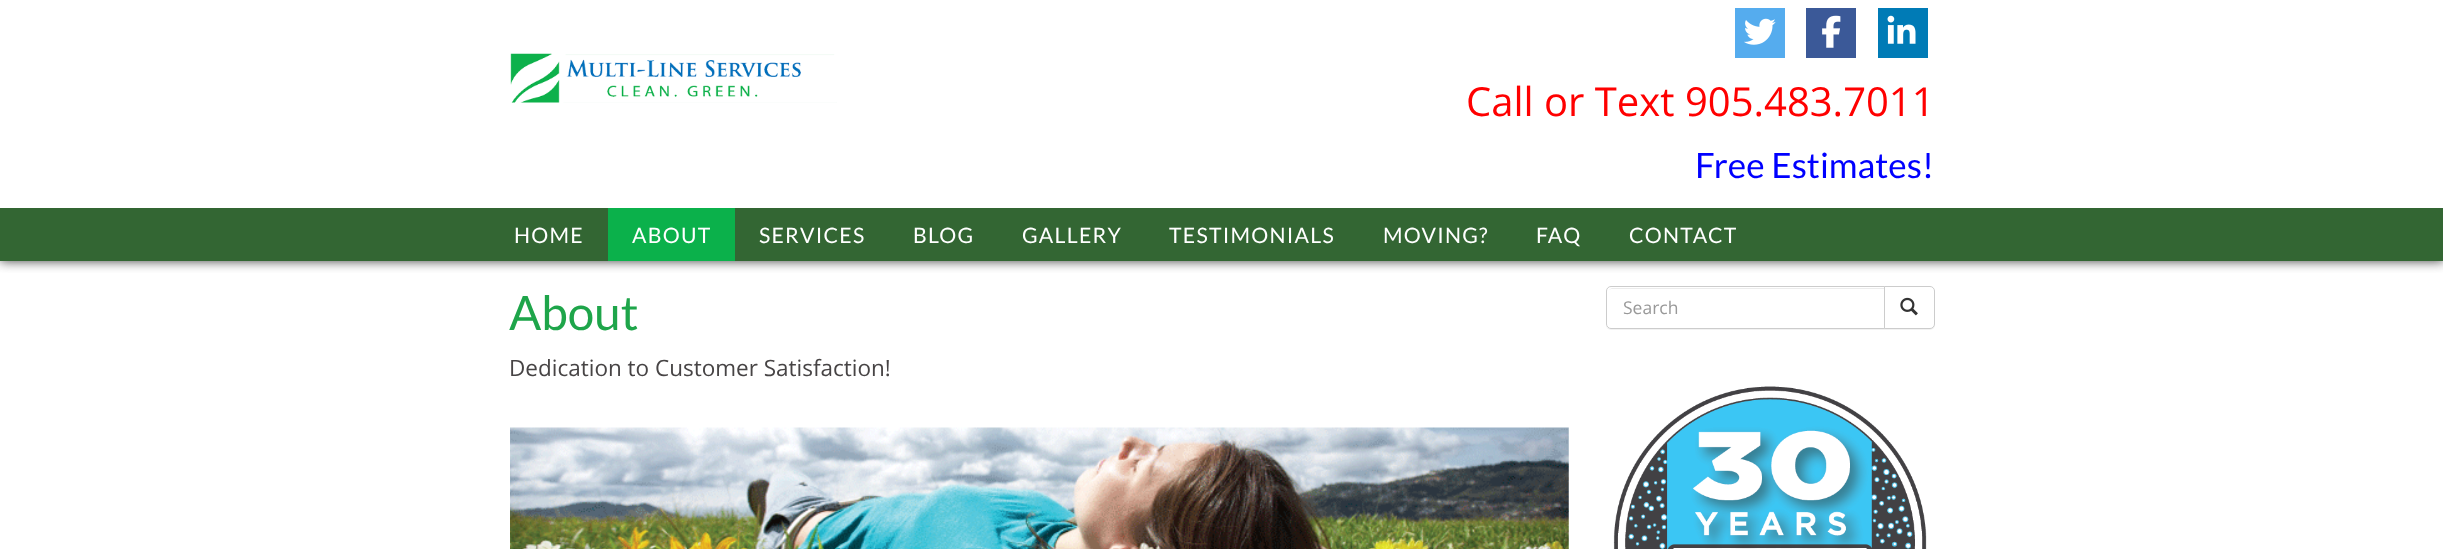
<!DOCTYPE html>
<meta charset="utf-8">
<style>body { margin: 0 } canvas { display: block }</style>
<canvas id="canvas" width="2443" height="549"></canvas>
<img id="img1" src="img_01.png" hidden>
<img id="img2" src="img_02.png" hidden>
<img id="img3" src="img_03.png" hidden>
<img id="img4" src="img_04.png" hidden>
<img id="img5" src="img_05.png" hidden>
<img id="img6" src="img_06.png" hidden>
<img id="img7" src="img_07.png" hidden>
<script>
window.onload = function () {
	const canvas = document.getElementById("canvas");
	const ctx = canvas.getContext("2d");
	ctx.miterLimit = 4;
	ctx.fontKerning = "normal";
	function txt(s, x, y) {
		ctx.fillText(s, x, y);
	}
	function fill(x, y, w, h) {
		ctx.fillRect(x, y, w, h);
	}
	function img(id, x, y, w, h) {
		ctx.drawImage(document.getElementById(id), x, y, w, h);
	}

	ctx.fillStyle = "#FFFFFF";
	fill(0, 0, 2443, 549);
	ctx.save();
	ctx.beginPath();
	ctx.rect(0, 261, 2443, 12);
	ctx.clip();
	ctx.fillStyle = "#3F3F3F";
	ctx.filter = "blur(6px)";
	ctx.beginPath();
	ctx.rect(0, 0, 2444, 261);
	ctx.fill();
	ctx.filter = "none";
	ctx.restore();
	img("img1", 510, 53, 327, 50);
	ctx.fillStyle = "#55ACEE";
	fill(1735, 8, 50, 50);
	img("img2", 1744, 18, 32, 27);
	ctx.fillStyle = "#3B5998";
	fill(1806, 8, 50, 50);
	img("img3", 1822, 15, 19, 33);
	ctx.fillStyle = "#007BB6";
	fill(1878, 8, 50, 50);
	img("img4", 1887, 15, 29, 29);
	ctx.fillStyle = "#336633";
	fill(0, 208, 2443, 53);
	ctx.fillStyle = "#0BB14B";
	fill(608, 208, 127, 53);
	img("img5", 510, 427, 1059, 122);
	ctx.fillStyle = "rgba(0, 0, 0, 0.05)";
	ctx.filter = "blur(0.5px)";
	ctx.beginPath();
	ctx.roundRect(1606, 288, 329, 42, 5);
	ctx.fill();
	ctx.filter = "none";
	ctx.fillStyle = "#FFFFFF";
	ctx.beginPath();
	ctx.roundRect(1606, 286, 279, 43, [5, 0, 0, 5]);
	ctx.fill();
	ctx.fillStyle = "#ECECEC";
	ctx.beginPath();
	ctx.moveTo(1611, 289);
	ctx.lineTo(1884, 289);
	ctx.lineTo(1884, 288);
	ctx.lineTo(1612, 288);
	ctx.lineTo(1610, 289);
	ctx.lineTo(1609, 290);
	ctx.closePath();
	ctx.fill();
	ctx.beginPath();
	ctx.roundRect(1606.5, 286.5, 278, 42, [4.5, 0, 0, 4.5]);
	ctx.strokeStyle = "#CCCCCC";
	ctx.stroke();
	ctx.fillStyle = "#FFFFFF";
	ctx.beginPath();
	ctx.roundRect(1884.5, 286.5, 50, 42, [0, 4.5, 4.5, 0]);
	ctx.fill();
	ctx.stroke();
	img("img6", 1900, 297, 18, 19);
	img("img7", 1613, 386, 314, 163);
	ctx.font = "40px Open Sans";
	ctx.fillStyle = "#FF0000";
	txt("Call or Text 905.483.7011", 1466, 116);
	ctx.font = "35px Lato";
	ctx.fillStyle = "#0000FF";
	txt("Free Estimates!", 1695, 178);
	ctx.letterSpacing = "1.25px";
	ctx.font = "21.25px Lato";
	ctx.fillStyle = "#FFFFFF";
	txt("HOME", 514, 243);
	txt("ABOUT", 632, 243);
	txt("SERVICES", 759, 243);
	txt("BLOG", 913, 243);
	txt("GALLERY", 1022, 243);
	txt("TESTIMONIALS", 1169, 243);
	txt("MOVING?", 1383, 243);
	txt("FAQ", 1536, 243);
	txt("CONTACT", 1629, 243);
	ctx.letterSpacing = "0px";
	ctx.font = "47.5px Lato";
	ctx.fillStyle = "#1EA54A";
	txt("About", 509, 330);
	ctx.font = "22.5px Open Sans";
	ctx.fillStyle = "#474445";
	txt("Dedication to Customer Satisfaction!", 509, 376);
	ctx.font = "17.5px Open Sans";
	ctx.fillStyle = "#999999";
	txt("Search", 1623, 314);
};
</script>
